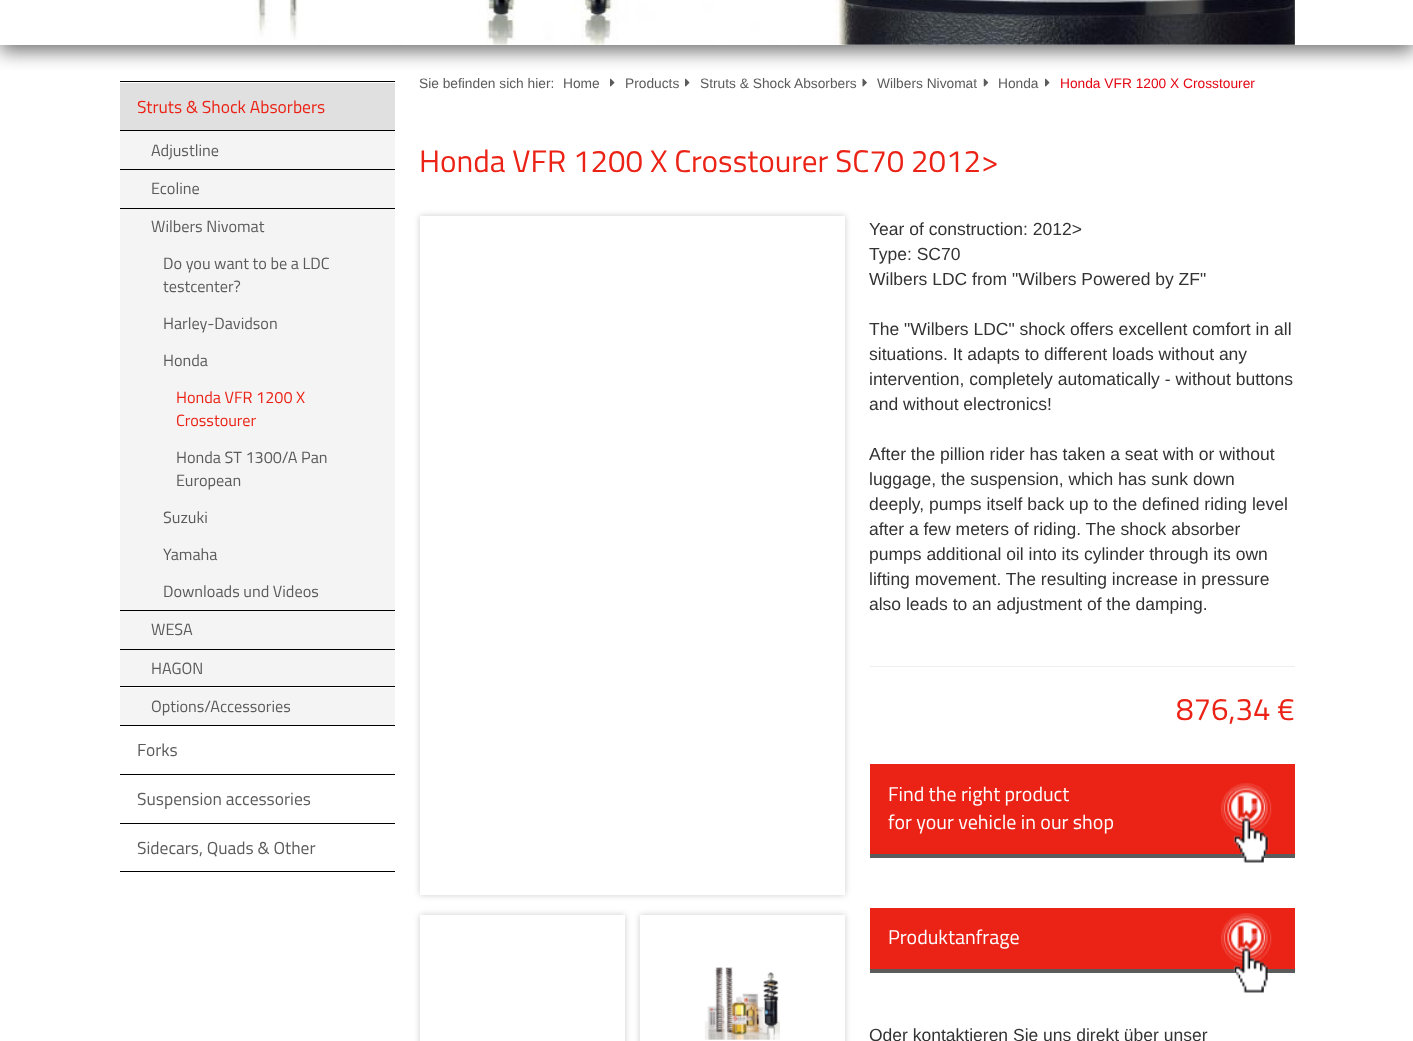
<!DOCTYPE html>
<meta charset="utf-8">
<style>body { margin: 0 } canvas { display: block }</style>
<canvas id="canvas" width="1413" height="1041"></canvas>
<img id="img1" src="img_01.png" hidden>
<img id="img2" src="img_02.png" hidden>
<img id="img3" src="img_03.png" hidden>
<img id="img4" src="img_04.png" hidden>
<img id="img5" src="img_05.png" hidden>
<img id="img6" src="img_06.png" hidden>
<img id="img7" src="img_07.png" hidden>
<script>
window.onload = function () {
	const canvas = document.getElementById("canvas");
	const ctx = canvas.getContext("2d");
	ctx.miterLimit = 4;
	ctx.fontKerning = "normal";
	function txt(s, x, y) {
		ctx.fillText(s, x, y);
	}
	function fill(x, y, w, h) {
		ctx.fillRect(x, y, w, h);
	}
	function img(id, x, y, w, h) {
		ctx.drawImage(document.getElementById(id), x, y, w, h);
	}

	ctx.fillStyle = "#FFFFFF";
	fill(0, 0, 1413, 1041);
	ctx.save();
	ctx.beginPath();
	ctx.rect(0, 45, 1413, 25);
	ctx.clip();
	ctx.fillStyle = "#706F6F";
	ctx.filter = "blur(9.5px)";
	ctx.beginPath();
	ctx.rect(0, -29, 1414, 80);
	ctx.fill();
	ctx.filter = "none";
	ctx.restore();
	img("img1", 255, 0, 1040, 45);
	ctx.fillStyle = "#000000";
	fill(120, 81, 275, 1);
	fill(120, 725, 275, 1);
	ctx.fillStyle = "#E0E0E0";
	fill(120, 83, 275, 47);
	ctx.fillStyle = "#000000";
	fill(120, 130, 275, 1);
	ctx.fillStyle = "#F4F4F4";
	fill(120, 131, 275, 38);
	ctx.fillStyle = "#000000";
	fill(120, 169, 275, 1);
	ctx.fillStyle = "#F4F4F4";
	fill(120, 170, 275, 38);
	ctx.fillStyle = "#000000";
	fill(120, 208, 275, 1);
	ctx.fillStyle = "#F4F4F4";
	fill(120, 209, 275, 401);
	ctx.fillStyle = "#000000";
	fill(120, 610, 275, 1);
	ctx.fillStyle = "#F4F4F4";
	fill(120, 611, 275, 38);
	ctx.fillStyle = "#000000";
	fill(120, 649, 275, 1);
	ctx.fillStyle = "#F4F4F4";
	fill(120, 650, 275, 36);
	ctx.fillStyle = "#000000";
	fill(120, 686, 275, 1);
	ctx.fillStyle = "#F4F4F4";
	fill(120, 688, 275, 37);
	ctx.fillStyle = "#000000";
	fill(120, 774, 275, 1);
	fill(120, 823, 275, 1);
	fill(120, 871, 275, 1);
	img("img2", 610, 78, 5, 9);
	img("img2", 685, 78, 5, 9);
	img("img3", 862, 78, 5, 9);
	img("img4", 983, 78, 6, 9);
	img("img2", 1045, 78, 5, 9);
	ctx.save();
	ctx.beginPath();
	ctx.moveTo(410, 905);
	ctx.lineTo(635, 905);
	ctx.lineTo(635, 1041);
	ctx.lineTo(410, 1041);
	ctx.closePath();
	ctx.moveTo(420, 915);
	ctx.lineTo(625, 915);
	ctx.lineTo(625, 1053);
	ctx.lineTo(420, 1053);
	ctx.closePath();
	ctx.clip("evenodd");
	ctx.fillStyle = "#CCCCCC";
	ctx.filter = "blur(3px)";
	ctx.beginPath();
	ctx.rect(420, 915, 205, 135);
	ctx.fill();
	ctx.filter = "none";
	ctx.restore();
	ctx.save();
	ctx.beginPath();
	ctx.moveTo(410, 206);
	ctx.lineTo(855, 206);
	ctx.lineTo(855, 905);
	ctx.lineTo(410, 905);
	ctx.closePath();
	ctx.moveTo(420, 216);
	ctx.lineTo(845, 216);
	ctx.lineTo(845, 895);
	ctx.lineTo(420, 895);
	ctx.closePath();
	ctx.clip("evenodd");
	ctx.fillStyle = "#CCCCCC";
	ctx.filter = "blur(3px)";
	ctx.beginPath();
	ctx.rect(420, 216, 425, 679);
	ctx.fill();
	ctx.filter = "none";
	ctx.restore();
	ctx.save();
	ctx.beginPath();
	ctx.moveTo(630, 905);
	ctx.lineTo(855, 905);
	ctx.lineTo(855, 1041);
	ctx.lineTo(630, 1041);
	ctx.closePath();
	ctx.moveTo(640, 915);
	ctx.lineTo(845, 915);
	ctx.lineTo(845, 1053);
	ctx.lineTo(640, 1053);
	ctx.closePath();
	ctx.clip("evenodd");
	ctx.fillStyle = "#CCCCCC";
	ctx.filter = "blur(3px)";
	ctx.beginPath();
	ctx.rect(640, 915, 205, 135);
	ctx.fill();
	ctx.filter = "none";
	ctx.restore();
	img("img5", 704, 967, 76, 73);
	ctx.fillStyle = "#EEEEEE";
	fill(870, 666, 425, 1);
	ctx.fillStyle = "#EB2316";
	fill(870, 764, 425, 90);
	ctx.fillStyle = "#5C5B5B";
	fill(870, 854, 425, 4);
	img("img6", 1221, 783, 51, 80);
	ctx.fillStyle = "#EB2316";
	fill(870, 908, 425, 61);
	ctx.fillStyle = "#5C5B5B";
	fill(870, 969, 425, 4);
	img("img7", 1221, 913, 51, 80);
	ctx.font = "17.5px Titillium Web";
	ctx.fillStyle = "#EB2316";
	txt("Struts & Shock Absorbers", 137, 113);
	ctx.font = "16.25px Titillium Web";
	ctx.fillStyle = "#5C5B5B";
	txt("Adjustline", 151, 156);
	txt("Ecoline", 151, 194);
	txt("Wilbers Nivomat", 151, 232);
	txt("Do you want to be a LDC", 163, 269);
	txt("testcenter?", 163, 292);
	txt("Harley-Davidson", 163, 329);
	txt("Honda", 163, 366);
	ctx.fillStyle = "#EB2316";
	txt("Honda VFR 1200 X", 176, 403);
	txt("Crosstourer", 176, 426);
	ctx.fillStyle = "#5C5B5B";
	txt("Honda ST 1300/A Pan", 176, 463);
	txt("European", 176, 486);
	txt("Suzuki", 163, 523);
	txt("Yamaha", 163, 560);
	txt("Downloads und Videos", 163, 597);
	txt("WESA", 151, 635);
	txt("HAGON", 151, 674);
	txt("Options/Accessories", 151, 712);
	ctx.font = "17.5px Titillium Web";
	txt("Forks", 137, 756);
	txt("Suspension accessories", 137, 805);
	txt("Sidecars, Quads & Other", 137, 854);
	ctx.font = "13.75px Liberation Sans";
	txt("Sie befinden sich hier:", 419, 88);
	txt("Home", 563, 88);
	txt("Products", 625, 88);
	txt("Struts & Shock Absorbers", 700, 88);
	txt("Wilbers Nivomat", 877, 88);
	txt("Honda", 998, 88);
	ctx.fillStyle = "#E30613";
	txt("Honda VFR 1200 X Crosstourer", 1060, 88);
	ctx.font = "31.25px Titillium Web";
	ctx.fillStyle = "#EB2316";
	txt("Honda VFR 1200 X Crosstourer SC70 2012>", 419, 172);
	ctx.font = "17.5px Liberation Sans";
	ctx.fillStyle = "#333333";
	txt("Year of construction: 2012>", 869, 235);
	txt("Type: SC70", 869, 260);
	txt("Wilbers LDC from \"Wilbers Powered by ZF\"", 869, 285);
	txt("The \"Wilbers LDC\" shock offers excellent comfort in all", 869, 335);
	txt("situations. It adapts to different loads without any", 869, 360);
	txt("intervention, completely automatically - without buttons", 869, 385);
	txt("and without electronics!", 869, 410);
	txt("After the pillion rider has taken a seat with or without", 869, 460);
	txt("luggage, the suspension, which has sunk down", 869, 485);
	txt("deeply, pumps itself back up to the defined riding level", 869, 510);
	txt("after a few meters of riding. The shock absorber", 869, 535);
	txt("pumps additional oil into its cylinder through its own", 869, 560);
	txt("lifting movement. The resulting increase in pressure", 869, 585);
	txt("also leads to an adjustment of the damping.", 869, 610);
	ctx.font = "31.25px Titillium Web";
	ctx.fillStyle = "#EB2316";
	txt("876,34 €", 1176, 720);
	ctx.font = "20px Titillium Web";
	ctx.fillStyle = "#FFFFFF";
	txt("Find the right product", 888, 801);
	txt("for your vehicle in our shop", 888, 829);
	txt("Produktanfrage", 888, 944);
	ctx.font = "17.5px Liberation Sans";
	ctx.fillStyle = "#333333";
	txt("Oder kontaktieren Sie uns direkt über unser", 869, 1041);
};
</script>
